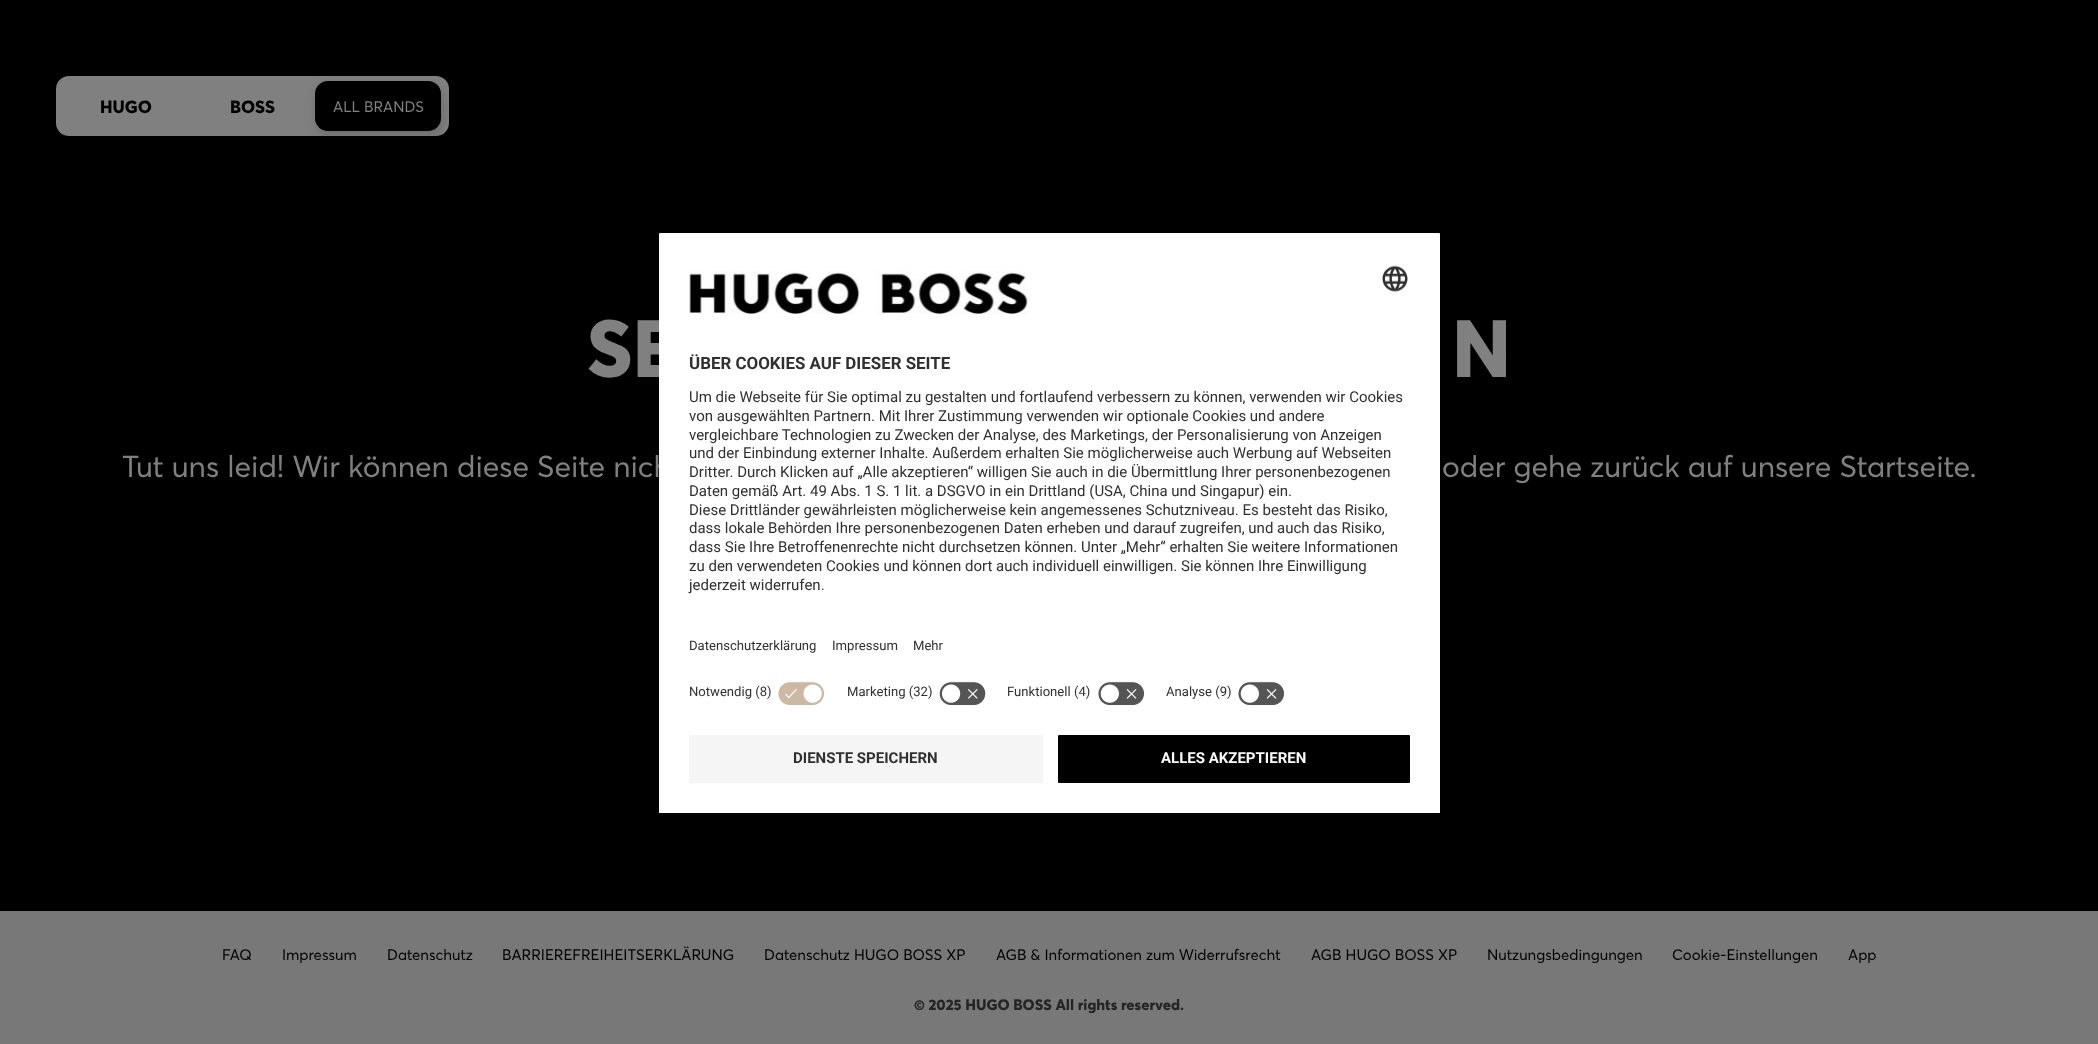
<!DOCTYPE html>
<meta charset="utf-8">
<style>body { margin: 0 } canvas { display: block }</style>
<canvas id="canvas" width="2098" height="1044"></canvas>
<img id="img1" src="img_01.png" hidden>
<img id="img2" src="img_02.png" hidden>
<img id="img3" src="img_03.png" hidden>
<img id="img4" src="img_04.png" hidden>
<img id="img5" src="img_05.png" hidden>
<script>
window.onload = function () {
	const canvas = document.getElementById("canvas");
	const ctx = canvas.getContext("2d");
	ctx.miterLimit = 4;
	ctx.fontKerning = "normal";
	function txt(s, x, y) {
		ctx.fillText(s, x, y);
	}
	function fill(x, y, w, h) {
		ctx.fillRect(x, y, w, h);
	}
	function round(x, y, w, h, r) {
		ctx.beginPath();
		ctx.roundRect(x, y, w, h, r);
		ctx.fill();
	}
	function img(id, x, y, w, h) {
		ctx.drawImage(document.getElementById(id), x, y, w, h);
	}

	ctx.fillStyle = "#000000";
	fill(0, 0, 2098, 1044);
	ctx.fillStyle = "#808080";
	round(56, 76, 393, 60, 13);
	ctx.fillStyle = "rgba(26, 26, 26, 0.16)";
	ctx.filter = "blur(4.5px)";
	ctx.beginPath();
	ctx.roundRect(315, 84, 129, 52, 14);
	ctx.fill();
	ctx.filter = "none";
	ctx.fillStyle = "#000000";
	round(315, 81, 126, 50, 13);
	ctx.fillStyle = "rgba(0, 0, 0, 0.3)";
	ctx.filter = "blur(17.5px)";
	ctx.beginPath();
	ctx.roundRect(659, 258, 781, 580, 1);
	ctx.fill();
	ctx.filter = "none";
	ctx.fillStyle = "rgba(0, 0, 0, 0.22)";
	ctx.filter = "blur(16px)";
	ctx.beginPath();
	ctx.roundRect(659, 239, 781, 580, 1);
	ctx.fill();
	ctx.filter = "none";
	ctx.fillStyle = "#787878";
	fill(0, 911, 2098, 133);
	ctx.font = "800 17.5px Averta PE";
	ctx.fillStyle = "#000000";
	txt("HUGO", 100, 113);
	txt("BOSS", 230, 113);
	ctx.font = "15px Averta PE";
	ctx.fillStyle = "#808080";
	txt("ALL BRANDS", 333, 112);
	ctx.font = "800 80px Averta PE";
	txt("SE", 587, 377);
	txt("N", 1452, 377);
	ctx.font = "30px Averta PE";
	txt("Tut uns leid! Wir können diese Seite nich", 122, 477);
	txt("oder gehe zurück auf unsere Startseite.", 1442, 477);
	ctx.fillStyle = "#FFFFFF";
	round(659, 233, 781, 580, 1);
	img("img1", 689, 271, 341, 43);
	img("img2", 1382, 265, 26, 27);
	ctx.font = "bold 16.9px Roboto";
	ctx.fillStyle = "#303030";
	txt("ÜBER COOKIES AUF DIESER SEITE", 689, 369);
	ctx.font = "15px Roboto";
	txt("Um die Webseite für Sie optimal zu gestalten und fortlaufend verbessern zu können, verwenden wir Cookies", 689, 402);
	txt("von ausgewählten Partnern. Mit Ihrer Zustimmung verwenden wir optionale Cookies und andere", 689, 421);
	txt("vergleichbare Technologien zu Zwecken der Analyse, des Marketings, der Personalisierung von Anzeigen", 689, 440);
	txt("und der Einbindung externer Inhalte. Außerdem erhalten Sie möglicherweise auch Werbung auf Webseiten", 689, 458);
	txt("Dritter. Durch Klicken auf „Alle akzeptieren“ willigen Sie auch in die Übermittlung Ihrer personenbezogenen", 689, 477);
	txt("Daten gemäß Art. 49 Abs. 1 S. 1 lit. a DSGVO in ein Drittland (USA, China und Singapur) ein.", 689, 496);
	txt("Diese Drittländer gewährleisten möglicherweise kein angemessenes Schutzniveau. Es besteht das Risiko,", 689, 515);
	txt("dass lokale Behörden Ihre personenbezogenen Daten erheben und darauf zugreifen, und auch das Risiko,", 689, 533);
	txt("dass Sie Ihre Betroffenenrechte nicht durchsetzen können. Unter „Mehr“ erhalten Sie weitere Informationen", 689, 552);
	txt("zu den verwendeten Cookies und können dort auch individuell einwilligen. Sie können Ihre Einwilligung", 689, 571);
	txt("jederzeit widerrufen.", 689, 590);
	ctx.font = "13.1px Roboto";
	txt("Datenschutzerklärung", 689, 650);
	txt("Impressum", 832, 650);
	txt("Mehr", 913, 650);
	txt("Notwendig (8)", 689, 696);
	img("img3", 778, 681, 47, 25);
	txt("Marketing (32)", 847, 696);
	img("img4", 939, 681, 47, 25);
	txt("Funktionell (4)", 1007, 696);
	img("img5", 1097, 681, 48, 25);
	txt("Analyse (9)", 1166, 696);
	img("img5", 1237, 681, 48, 25);
	ctx.fillStyle = "#FFFFFF";
	ctx.beginPath();
	ctx.roundRect(659, 725, 781, 88, [0, 0, 1, 1]);
	ctx.fill();
	ctx.fillStyle = "#F5F5F5";
	round(689, 735, 354, 48, 1);
	ctx.font = "bold 15px Roboto";
	ctx.fillStyle = "#303030";
	txt("DIENSTE SPEICHERN", 793, 763);
	ctx.fillStyle = "#000000";
	round(1058, 735, 352, 48, 1);
	ctx.fillStyle = "#FAFAFA";
	txt("ALLES AKZEPTIEREN", 1161, 763);
	ctx.font = "15px Averta PE";
	ctx.fillStyle = "#000000";
	txt("FAQ", 222, 960);
	txt("Impressum", 282, 960);
	txt("Datenschutz", 387, 960);
	txt("BARRIEREFREIHEITSERKLÄRUNG", 502, 960);
	txt("Datenschutz HUGO BOSS XP", 764, 960);
	txt("AGB & Informationen zum Widerrufsrecht", 996, 960);
	txt("AGB HUGO BOSS XP", 1311, 960);
	txt("Nutzungsbedingungen", 1487, 960);
	txt("Cookie-Einstellungen", 1672, 960);
	txt("App", 1848, 960);
	ctx.font = "800 15px Averta PE";
	ctx.fillStyle = "#252525";
	txt("© 2025 HUGO BOSS All rights reserved.", 914, 1010);
};
</script>
